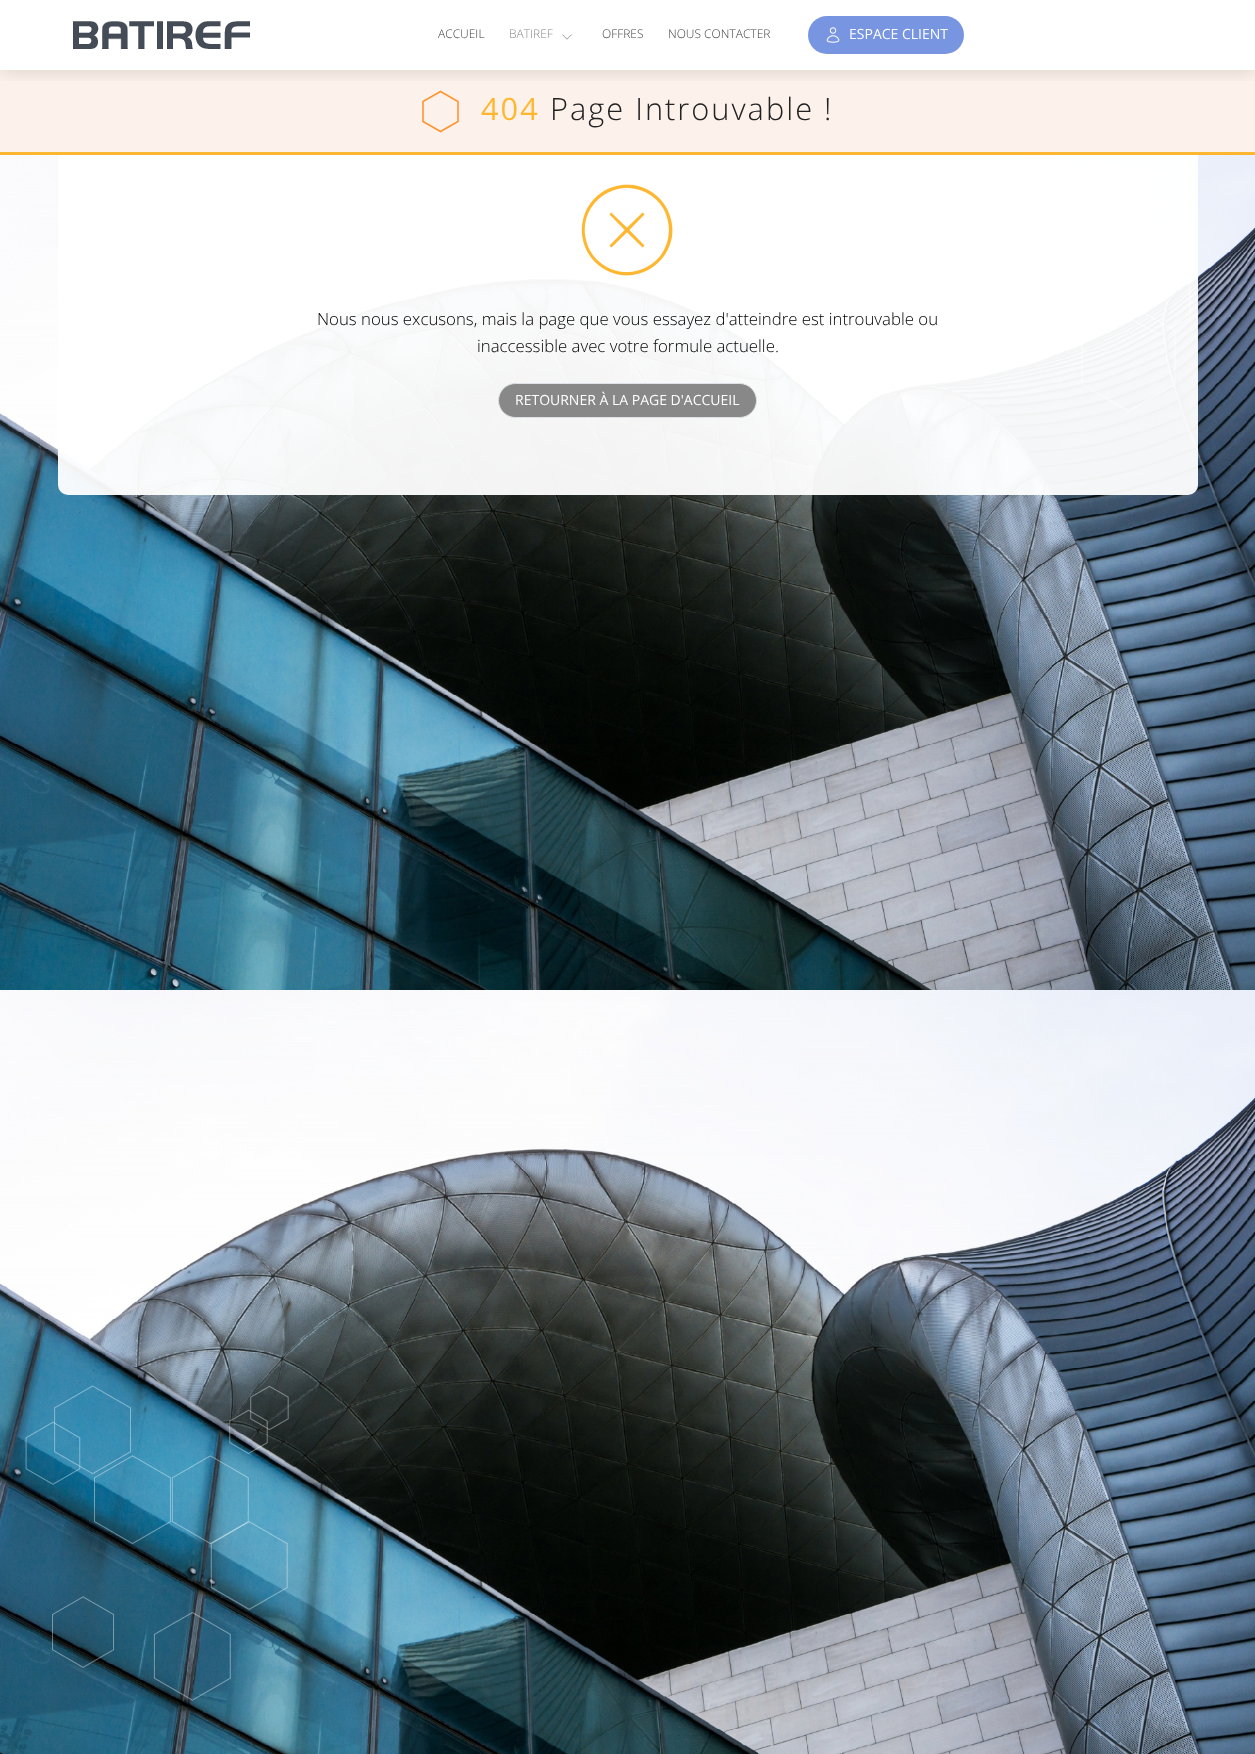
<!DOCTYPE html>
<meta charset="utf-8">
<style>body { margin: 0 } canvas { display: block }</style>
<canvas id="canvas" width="1255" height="1754"></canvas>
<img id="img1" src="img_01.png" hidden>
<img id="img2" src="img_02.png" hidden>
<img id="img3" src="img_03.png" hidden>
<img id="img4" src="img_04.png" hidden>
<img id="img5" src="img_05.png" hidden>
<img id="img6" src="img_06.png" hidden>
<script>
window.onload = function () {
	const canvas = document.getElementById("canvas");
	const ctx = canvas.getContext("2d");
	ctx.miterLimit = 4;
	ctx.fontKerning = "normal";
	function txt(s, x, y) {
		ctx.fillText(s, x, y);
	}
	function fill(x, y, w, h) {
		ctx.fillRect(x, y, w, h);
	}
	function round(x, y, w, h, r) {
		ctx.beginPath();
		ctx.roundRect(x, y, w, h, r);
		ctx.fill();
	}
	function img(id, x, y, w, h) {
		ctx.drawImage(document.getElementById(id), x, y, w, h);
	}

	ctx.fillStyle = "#FFFFFF";
	fill(0, 0, 1255, 1754);
	ctx.fillStyle = "#FDF1EB";
	fill(0, 70, 1255, 82);
	ctx.beginPath();
	ctx.moveTo(440.5, 91.5);
	ctx.lineTo(458, 101.5);
	ctx.lineTo(458, 121.5);
	ctx.lineTo(440.5, 131.5);
	ctx.lineTo(423, 121.5);
	ctx.lineTo(423, 101.5);
	ctx.closePath();
	ctx.strokeStyle = "#FF9532";
	ctx.lineWidth = 1.6;
	ctx.stroke();
	ctx.save();
	ctx.beginPath();
	ctx.rect(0, 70, 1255, 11);
	ctx.clip();
	ctx.fillStyle = "rgba(0, 0, 0, 0.15)";
	ctx.filter = "blur(10px)";
	ctx.beginPath();
	ctx.rect(0, 0, 1255, 70);
	ctx.fill();
	ctx.filter = "none";
	ctx.restore();
	img("img1", 73, 21, 177, 28);
	img("img2", 562, 34, 10, 6);
	ctx.fillStyle = "#7795E0";
	round(808, 16, 156, 38, 19);
	img("img3", 826, 27, 14, 16);
	ctx.fillStyle = "#FFB732";
	fill(0, 152, 1255, 3);
	img("img4", 0, 155, 1255, 1599);
	ctx.fillStyle = "rgba(255, 255, 255, 0.95)";
	ctx.beginPath();
	ctx.roundRect(58, 155, 1140, 340, [0, 0, 10, 10]);
	ctx.fill();
	img("img5", 581, 184, 92, 92);
	ctx.fillStyle = "#888888";
	ctx.beginPath();
	ctx.roundRect(498.5, 383.5, 258, 34, 17);
	ctx.fill();
	ctx.strokeStyle = "#DEE2E6";
	ctx.lineWidth = 1;
	ctx.stroke();
	ctx.beginPath();
	ctx.moveTo(1159.5, 264.5);
	ctx.lineTo(1190, 282);
	ctx.lineTo(1190, 317.5);
	ctx.lineTo(1159.5, 335);
	ctx.lineTo(1129, 317.5);
	ctx.lineTo(1129, 282);
	ctx.closePath();
	ctx.strokeStyle = "rgba(255, 255, 255, 0.7)";
	ctx.stroke();
	ctx.beginPath();
	ctx.moveTo(1128.5, 304);
	ctx.lineTo(1175, 330.5);
	ctx.lineTo(1175, 384.5);
	ctx.lineTo(1128.5, 411);
	ctx.lineTo(1082, 384.5);
	ctx.lineTo(1082, 330.5);
	ctx.closePath();
	ctx.stroke();
	img("img6", 25, 1385, 264, 316);
	ctx.font = "300 12px Open Sans";
	ctx.fillStyle = "#404040";
	txt("ACCUEIL", 438, 38);
	ctx.fillStyle = "#888888";
	txt("BATIREF", 509, 38);
	ctx.fillStyle = "#404040";
	txt("OFFRES", 602, 38);
	txt("NOUS CONTACTER", 668, 38);
	ctx.font = "14px Open Sans";
	ctx.fillStyle = "#FFFFFF";
	txt("ESPACE CLIENT", 849, 39);
	ctx.letterSpacing = "2px";
	ctx.font = "30.75px Open Sans";
	ctx.fillStyle = "#FFB732";
	txt("404", 481, 120);
	ctx.font = "300 30.75px Open Sans";
	ctx.fillStyle = "#222222";
	txt("Page Introuvable !", 550, 120);
	ctx.letterSpacing = "0px";
	ctx.font = "300 16.8px Open Sans";
	ctx.fillStyle = "#000000";
	txt("Nous nous excusons, mais la page que vous essayez d'atteindre est introuvable ou", 317, 325);
	txt("inaccessible avec votre formule actuelle.", 477, 352);
	ctx.font = "14px Open Sans";
	ctx.fillStyle = "#FFFFFF";
	txt("RETOURNER À LA PAGE D'ACCUEIL", 515, 405);
};
</script>
